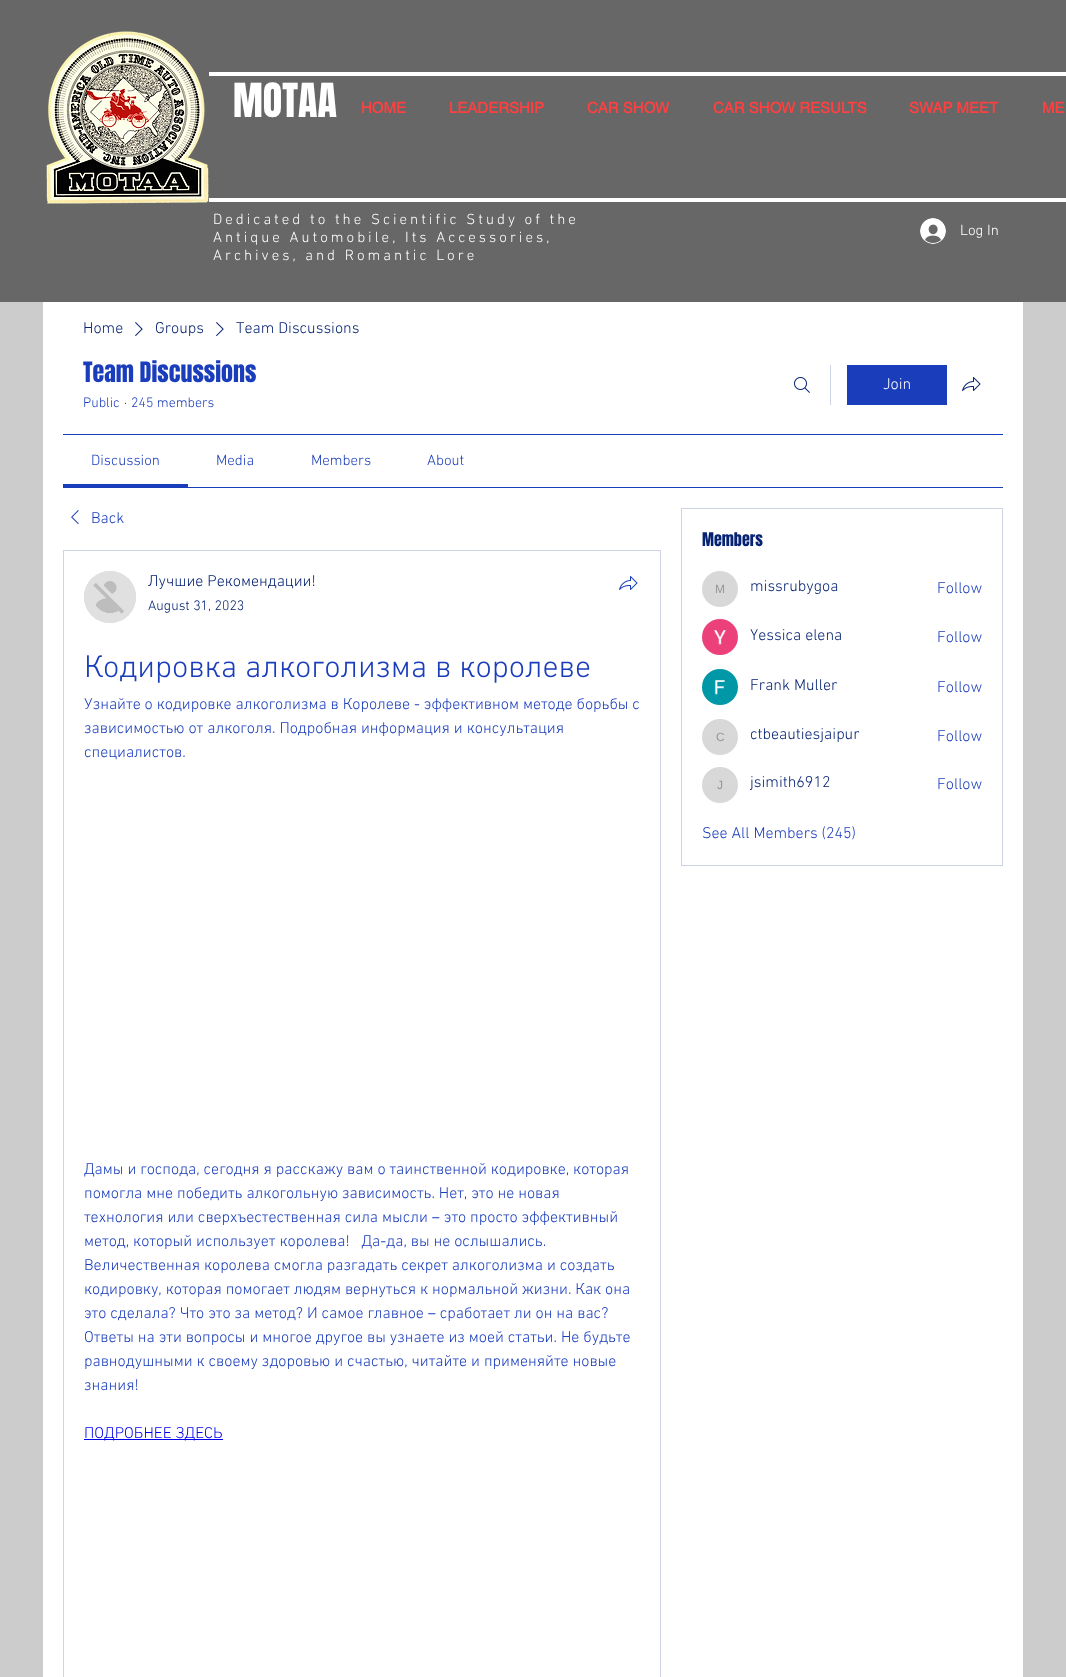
<!DOCTYPE html>
<meta charset="utf-8">
<style>body { margin: 0 } canvas { display: block }</style>
<canvas id="canvas" width="1066" height="1677"></canvas>
<img id="img1" src="img_01.png" hidden>
<img id="img2" src="img_02.png" hidden>
<img id="img3" src="img_03.png" hidden>
<img id="img4" src="img_04.png" hidden>
<img id="img5" src="img_05.png" hidden>
<img id="img6" src="img_06.png" hidden>
<img id="img7" src="img_07.png" hidden>
<img id="img8" src="img_08.png" hidden>
<img id="img9" src="img_09.png" hidden>
<img id="img10" src="img_10.png" hidden>
<script>
window.onload = function () {
	const canvas = document.getElementById("canvas");
	const ctx = canvas.getContext("2d");
	ctx.miterLimit = 4;
	ctx.fontKerning = "normal";
	function txt(s, x, y) {
		ctx.fillText(s, x, y);
	}
	function fill(x, y, w, h) {
		ctx.fillRect(x, y, w, h);
	}
	function img(id, x, y, w, h) {
		ctx.drawImage(document.getElementById(id), x, y, w, h);
	}

	ctx.fillStyle = "#CCCCCC";
	fill(0, 0, 1066, 1677);
	ctx.fillStyle = "#676767";
	fill(0, 0, 1066, 302);
	img("img1", 46, 31, 163, 173);
	ctx.fillStyle = "#FFFFFF";
	fill(209, 72, 857, 4);
	fill(209, 198, 857, 4);
	img("img2", 920, 218, 26, 26);
	fill(43, 302, 980, 1375);
	img("img3", 135, 322, 8, 14);
	img("img3", 216, 322, 8, 14);
	img("img4", 794, 377, 16, 16);
	ctx.fillStyle = "#CDD3E3";
	fill(830, 365, 1, 40);
	ctx.fillStyle = "#1A3DBC";
	fill(847, 365, 100, 40);
	img("img5", 962, 377, 19, 14);
	fill(63, 434, 940, 1);
	fill(63, 487, 940, 1);
	fill(63, 484, 125, 3);
	img("img6", 71, 510, 8, 14);
	ctx.strokeStyle = "#CDD3E3";
	ctx.strokeRect(63.5, 550.5, 597, 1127);
	ctx.fillStyle = "#D8D8D8";
	ctx.beginPath();
	ctx.arc(110, 597, 26, 0, Math.PI * 2);
	ctx.fill();
	img("img7", 84, 571, 52, 52);
	img("img8", 619, 576, 19, 14);
	ctx.fillStyle = "#0000EE";
	fill(84, 1439, 139, 1);
	ctx.strokeRect(681.5, 508.5, 321, 357);
	ctx.fillStyle = "#D8D8D8";
	ctx.beginPath();
	ctx.arc(720, 589, 18, 0, Math.PI * 2);
	ctx.fill();
	img("img9", 702, 619, 36, 36);
	img("img10", 702, 669, 36, 36);
	ctx.beginPath();
	ctx.arc(720, 737, 18, 0, Math.PI * 2);
	ctx.fill();
	ctx.beginPath();
	ctx.arc(720, 785, 18, 0, Math.PI * 2);
	ctx.fill();
	ctx.font = "40px Anton";
	ctx.fillStyle = "#FFFFFF";
	txt("MOTAA", 233, 117);
	ctx.font = "bold 15px helvetica";
	ctx.fillStyle = "#FF4040";
	txt("HOME", 361, 113);
	txt("LEADERSHIP", 449, 113);
	txt("CAR SHOW", 587, 113);
	txt("CAR SHOW RESULTS", 713, 113);
	txt("SWAP MEET", 909, 113);
	txt("ME", 1042, 113);
	ctx.letterSpacing = "3px";
	ctx.font = "300 15px 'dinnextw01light'";
	ctx.fillStyle = "#FFFFFF";
	txt("Dedicated to the Scientific Study of the", 213, 224);
	txt("Antique Automobile, Its Accessories,", 213, 242);
	txt("Archives, and Romantic Lore", 213, 260);
	ctx.letterSpacing = "0px";
	txt("Log In", 960, 235);
	ctx.font = "300 16px 'dinnextw01light'";
	ctx.fillStyle = "#062272";
	txt("Home", 83, 333);
	txt("Groups", 155, 333);
	txt("Team Discussions", 236, 333);
	ctx.font = "24px Anton";
	ctx.fillStyle = "#1A3DBC";
	txt("Team Discussions", 83, 382);
	ctx.font = "300 14px 'dinnextw01light'";
	txt("Public", 83, 407);
	txt("·", 124, 407);
	txt("245 members", 131, 407);
	ctx.font = "300 16px 'dinnextw01light'";
	ctx.fillStyle = "#FFFFFF";
	txt("Join", 883, 389);
	ctx.font = "300 15px 'dinnextw01light'";
	ctx.fillStyle = "#1A3DBC";
	txt("Discussion", 91, 465);
	txt("Media", 216, 465);
	txt("Members", 311, 465);
	txt("About", 427, 465);
	ctx.font = "300 16px 'dinnextw01light'";
	txt("Back", 91, 523);
	ctx.fillStyle = "#062272";
	txt("Лучшие Рекомендации!", 148, 586);
	ctx.font = "300 14px 'dinnextw01light'";
	txt("August 31, 2023", 148, 610);
	ctx.font = "300 32px 'dinnextw01light'";
	ctx.fillStyle = "#1A3DBC";
	txt("Кодировка алкоголизма в королеве", 84, 677);
	ctx.font = "300 16px 'dinnextw01light'";
	txt("Узнайте о кодировке алкоголизма в Королеве - эффективном методе борьбы с", 84, 709);
	txt("зависимостью от алкоголя. Подробная информация и консультация", 84, 733);
	txt("специалистов.", 84, 757);
	txt("Дамы и господа, сегодня я расскажу вам о таинственной кодировке, которая", 84, 1174);
	txt("помогла мне победить алкогольную зависимость. Нет, это не новая", 84, 1198);
	txt("технология или сверхъестественная сила мысли – это просто эффективный", 84, 1222);
	txt("метод, который использует королева!   Да-да, вы не ослышались.", 84, 1246);
	txt("Величественная королева смогла разгадать секрет алкоголизма и создать", 84, 1270);
	txt("кодировку, которая помогает людям вернуться к нормальной жизни. Как она", 84, 1294);
	txt("это сделала? Что это за метод? И самое главное – сработает ли он на вас?", 84, 1318);
	txt("Ответы на эти вопросы и многое другое вы узнаете из моей статьи. Не будьте", 84, 1342);
	txt("равнодушными к своему здоровью и счастью, читайте и применяйте новые", 84, 1366);
	txt("знания!", 84, 1390);
	ctx.fillStyle = "#0000EE";
	txt("ПОДРОБНЕЕ ЗДЕСЬ", 84, 1438);
	ctx.font = "16px Anton";
	ctx.fillStyle = "#062272";
	txt("Members", 702, 546);
	ctx.font = "12px Liberation Sans";
	ctx.fillStyle = "#979797";
	txt("M", 715, 593);
	ctx.font = "300 16px 'dinnextw01light'";
	ctx.fillStyle = "#062272";
	txt("missrubygoa", 750, 591);
	ctx.fillStyle = "#1A3DBC";
	txt("Follow", 937, 593);
	ctx.fillStyle = "#062272";
	txt("Yessica elena", 750, 640);
	ctx.fillStyle = "#1A3DBC";
	txt("Follow", 937, 642);
	ctx.fillStyle = "#062272";
	txt("Frank Muller", 750, 690);
	ctx.fillStyle = "#1A3DBC";
	txt("Follow", 937, 692);
	ctx.font = "12px Liberation Sans";
	ctx.fillStyle = "#979797";
	txt("C", 716, 741);
	ctx.font = "300 16px 'dinnextw01light'";
	ctx.fillStyle = "#062272";
	txt("ctbeautiesjaipur", 750, 739);
	ctx.fillStyle = "#1A3DBC";
	txt("Follow", 937, 741);
	ctx.font = "12px Liberation Sans";
	ctx.fillStyle = "#979797";
	txt("J", 717, 789);
	ctx.font = "300 16px 'dinnextw01light'";
	ctx.fillStyle = "#062272";
	txt("jsimith6912", 750, 787);
	ctx.fillStyle = "#1A3DBC";
	txt("Follow", 937, 789);
	txt("See All Members (245)", 702, 838);
};
</script>
